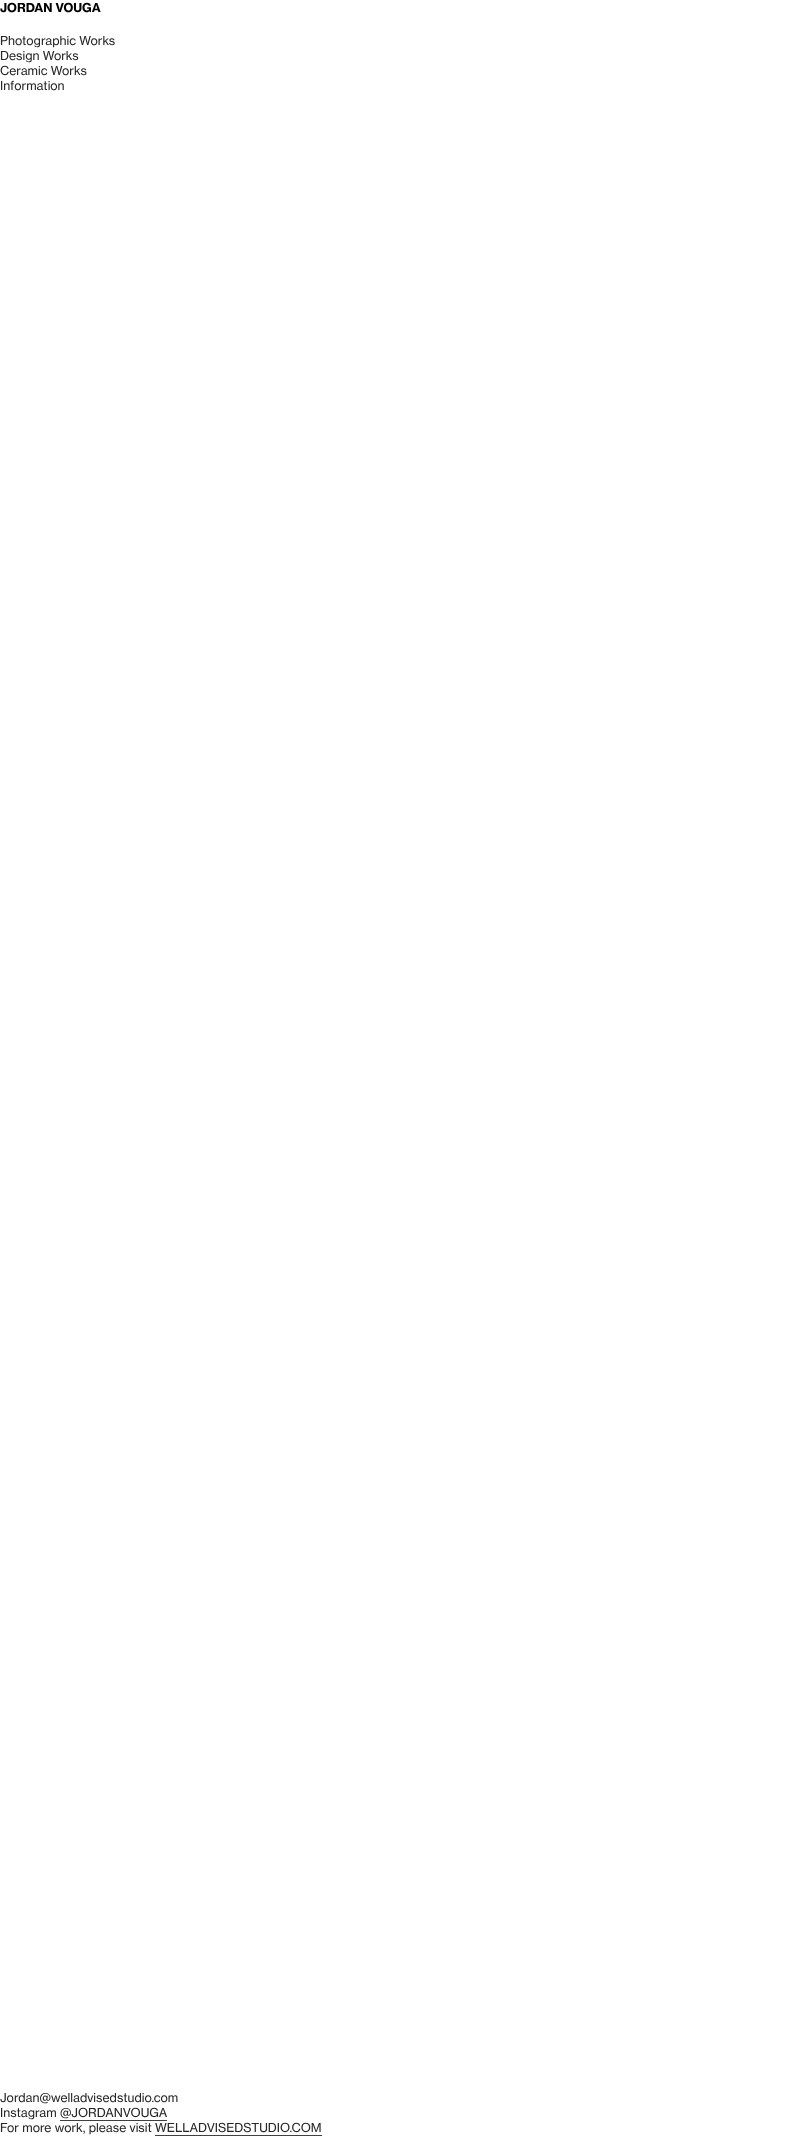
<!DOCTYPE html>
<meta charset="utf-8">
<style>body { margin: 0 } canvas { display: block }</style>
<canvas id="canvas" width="799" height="2154"></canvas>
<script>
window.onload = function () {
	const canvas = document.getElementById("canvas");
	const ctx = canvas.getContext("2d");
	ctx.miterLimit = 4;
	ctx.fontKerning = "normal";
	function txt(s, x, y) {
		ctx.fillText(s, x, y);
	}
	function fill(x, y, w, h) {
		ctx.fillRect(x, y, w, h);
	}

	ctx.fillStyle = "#FFFFFF";
	fill(0, 0, 799, 2154);
	ctx.fillStyle = "#404040";
	fill(60, 2120, 107, 1);
	fill(155, 2135, 167, 1);
	ctx.font = "bold 12.25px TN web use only";
	ctx.fillStyle = "#000000";
	txt("JORDAN VOUGA", 0, 12);
	ctx.font = "12.25px TN web use only";
	ctx.fillStyle = "#262626";
	txt("Photographic Works", 0, 45);
	txt("Design Works", 0, 60);
	txt("Ceramic Works", 0, 75);
	txt("Information", 0, 90);
	txt("Jordan@welladvisedstudio.com", 0, 2102);
	txt("Instagram @JORDANVOUGA", 0, 2117);
	txt("For more work, please visit", 0, 2132);
	txt("WELLADVISEDSTUDIO.COM", 155, 2132);
};
</script>
